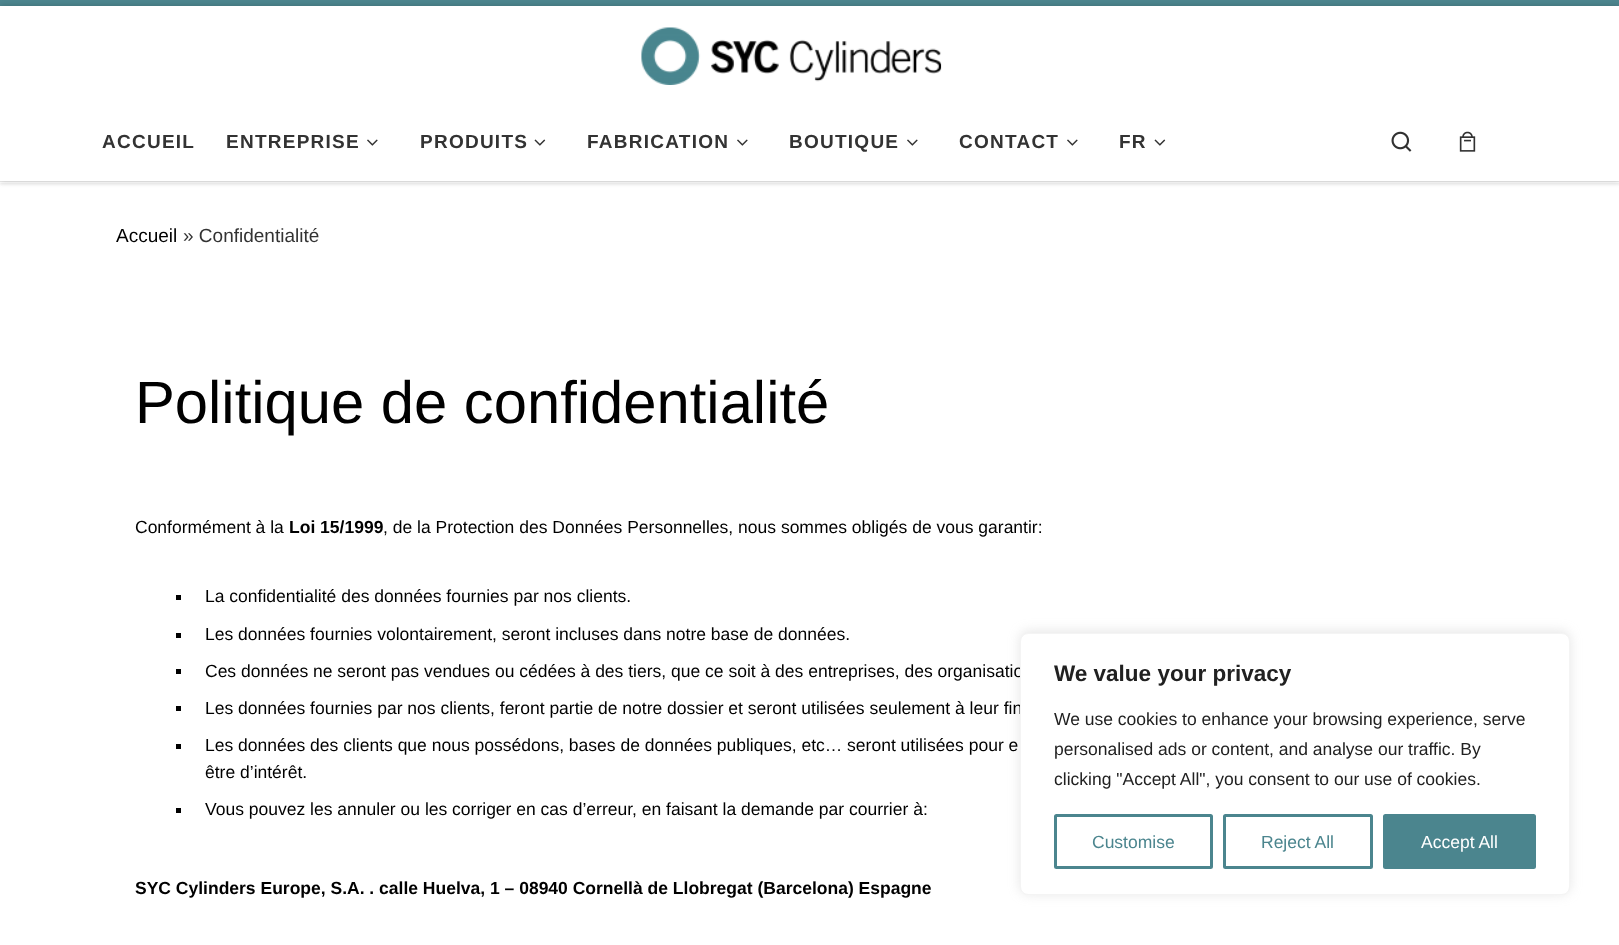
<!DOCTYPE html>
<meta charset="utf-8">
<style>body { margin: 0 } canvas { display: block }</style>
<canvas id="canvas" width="1619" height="945"></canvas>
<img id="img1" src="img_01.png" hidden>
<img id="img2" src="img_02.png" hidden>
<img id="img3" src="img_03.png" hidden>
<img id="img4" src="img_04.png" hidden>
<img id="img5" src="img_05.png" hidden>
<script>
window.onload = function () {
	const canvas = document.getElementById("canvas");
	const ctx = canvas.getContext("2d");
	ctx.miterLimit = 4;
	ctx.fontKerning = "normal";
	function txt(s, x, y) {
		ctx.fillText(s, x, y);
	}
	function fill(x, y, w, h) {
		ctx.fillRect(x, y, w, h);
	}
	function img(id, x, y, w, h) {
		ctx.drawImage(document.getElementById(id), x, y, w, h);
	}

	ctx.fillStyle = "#FFFFFF";
	fill(0, 0, 1619, 945);
	ctx.fillStyle = "rgba(102, 102, 102, 0.08)";
	ctx.filter = "blur(1px)";
	ctx.beginPath();
	ctx.rect(0, 3, 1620, 182);
	ctx.fill();
	ctx.filter = "none";
	ctx.fillStyle = "#FFFFFF";
	fill(0, 182, 1619, 1);
	ctx.fillStyle = "#4D868F";
	fill(0, 0, 1619, 6);
	ctx.fillStyle = "#ECECEC";
	fill(0, 181, 1619, 1);
	ctx.fillStyle = "rgba(255, 255, 255, 0.15)";
	fill(0, 181, 1619, 1);
	ctx.fillStyle = "rgba(0, 0, 0, 0.2)";
	ctx.filter = "blur(3px)";
	ctx.beginPath();
	ctx.rect(0, 6, 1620, 175);
	ctx.fill();
	ctx.filter = "none";
	ctx.fillStyle = "#FFFFFF";
	fill(0, 6, 1619, 175);
	img("img1", 641, 27, 301, 58);
	img("img2", 367, 139, 11, 7);
	img("img3", 534, 139, 12, 7);
	img("img2", 737, 139, 11, 7);
	img("img2", 907, 139, 11, 7);
	img("img2", 1067, 139, 11, 7);
	img("img3", 1154, 139, 12, 7);
	img("img4", 1391, 131, 21, 21);
	img("img5", 1459, 131, 17, 21);
	ctx.fillStyle = "#000000";
	fill(176, 595, 5, 5);
	fill(176, 633, 5, 5);
	fill(176, 669, 5, 5);
	fill(176, 706, 5, 5);
	fill(176, 744, 5, 5);
	fill(176, 808, 5, 5);
	ctx.fillStyle = "rgba(172, 171, 171, 0.3)";
	ctx.filter = "blur(6px)";
	ctx.beginPath();
	ctx.roundRect(1020, 631, 550, 263, 8);
	ctx.fill();
	ctx.filter = "none";
	ctx.letterSpacing = "1.25px";
	ctx.font = "bold 19px Liberation Sans";
	ctx.fillStyle = "#333333";
	txt("ACCUEIL", 102, 148);
	txt("ENTREPRISE", 226, 148);
	txt("PRODUITS", 420, 148);
	txt("FABRICATION", 587, 148);
	txt("BOUTIQUE", 789, 148);
	txt("CONTACT", 959, 148);
	txt("FR", 1119, 148);
	ctx.letterSpacing = "0px";
	ctx.font = "19px Liberation Sans";
	ctx.fillStyle = "#000000";
	txt("Accueil", 116, 242);
	ctx.fillStyle = "#333333";
	txt("» Confidentialité", 183, 242);
	ctx.font = "59.75px Liberation Sans";
	ctx.fillStyle = "#000000";
	txt("Politique de confidentialité", 135, 423);
	ctx.font = "17.5px Liberation Sans";
	txt("Conformément à la", 135, 533);
	ctx.font = "bold 17.5px Liberation Sans";
	txt("Loi 15/1999", 289, 533);
	ctx.font = "17.5px Liberation Sans";
	txt(", de la Protection des Données Personnelles, nous sommes obligés de vous garantir:", 383, 533);
	txt("La confidentialité des données fournies par nos clients.", 205, 602);
	txt("Les données fournies volontairement, seront incluses dans notre base de données.", 205, 640);
	txt("Ces données ne seront pas vendues ou cédées à des tiers, que ce soit à des entreprises, des organisatio", 205, 677);
	txt("Les données fournies par nos clients, feront partie de notre dossier et seront utilisées seulement à leur fin", 205, 714);
	txt("Les données des clients que nous possédons, bases de données publiques, etc… seront utilisées pour e", 205, 751);
	txt("être d’intérêt.", 205, 778);
	txt("Vous pouvez les annuler ou les corriger en cas d’erreur, en faisant la demande par courrier à:", 205, 815);
	ctx.font = "bold 17.5px Liberation Sans";
	txt("SYC Cylinders Europe, S.A. . calle Huelva, 1 – 08940 Cornellà de Llobregat (Barcelona) Espagne", 135, 894);
	ctx.fillStyle = "#FFFFFF";
	ctx.beginPath();
	ctx.roundRect(1020.5, 633.5, 549, 261, 7.5);
	ctx.fill();
	ctx.strokeStyle = "#F4F4F4";
	ctx.stroke();
	ctx.font = "bold 22.5px Liberation Sans";
	ctx.fillStyle = "#212121";
	txt("We value your privacy", 1054, 681);
	ctx.font = "17.5px Liberation Sans";
	txt("We use cookies to enhance your browsing experience, serve", 1054, 725);
	txt("personalised ads or content, and analyse our traffic. By", 1054, 755);
	txt("clicking \"Accept All\", you consent to our use of cookies.", 1054, 785);
	ctx.beginPath();
	ctx.roundRect(1055.5, 815.5, 156, 52, 1);
	ctx.strokeStyle = "#4B858E";
	ctx.lineWidth = 3;
	ctx.stroke();
	ctx.fillStyle = "#4B858E";
	txt("Customise", 1092, 848);
	ctx.beginPath();
	ctx.roundRect(1224.5, 815.5, 147, 52, 1);
	ctx.stroke();
	txt("Reject All", 1261, 848);
	ctx.beginPath();
	ctx.roundRect(1384.5, 815.5, 150, 52, 1);
	ctx.fill();
	ctx.stroke();
	ctx.fillStyle = "#FFFFFF";
	txt("Accept All", 1421, 848);
};
</script>
